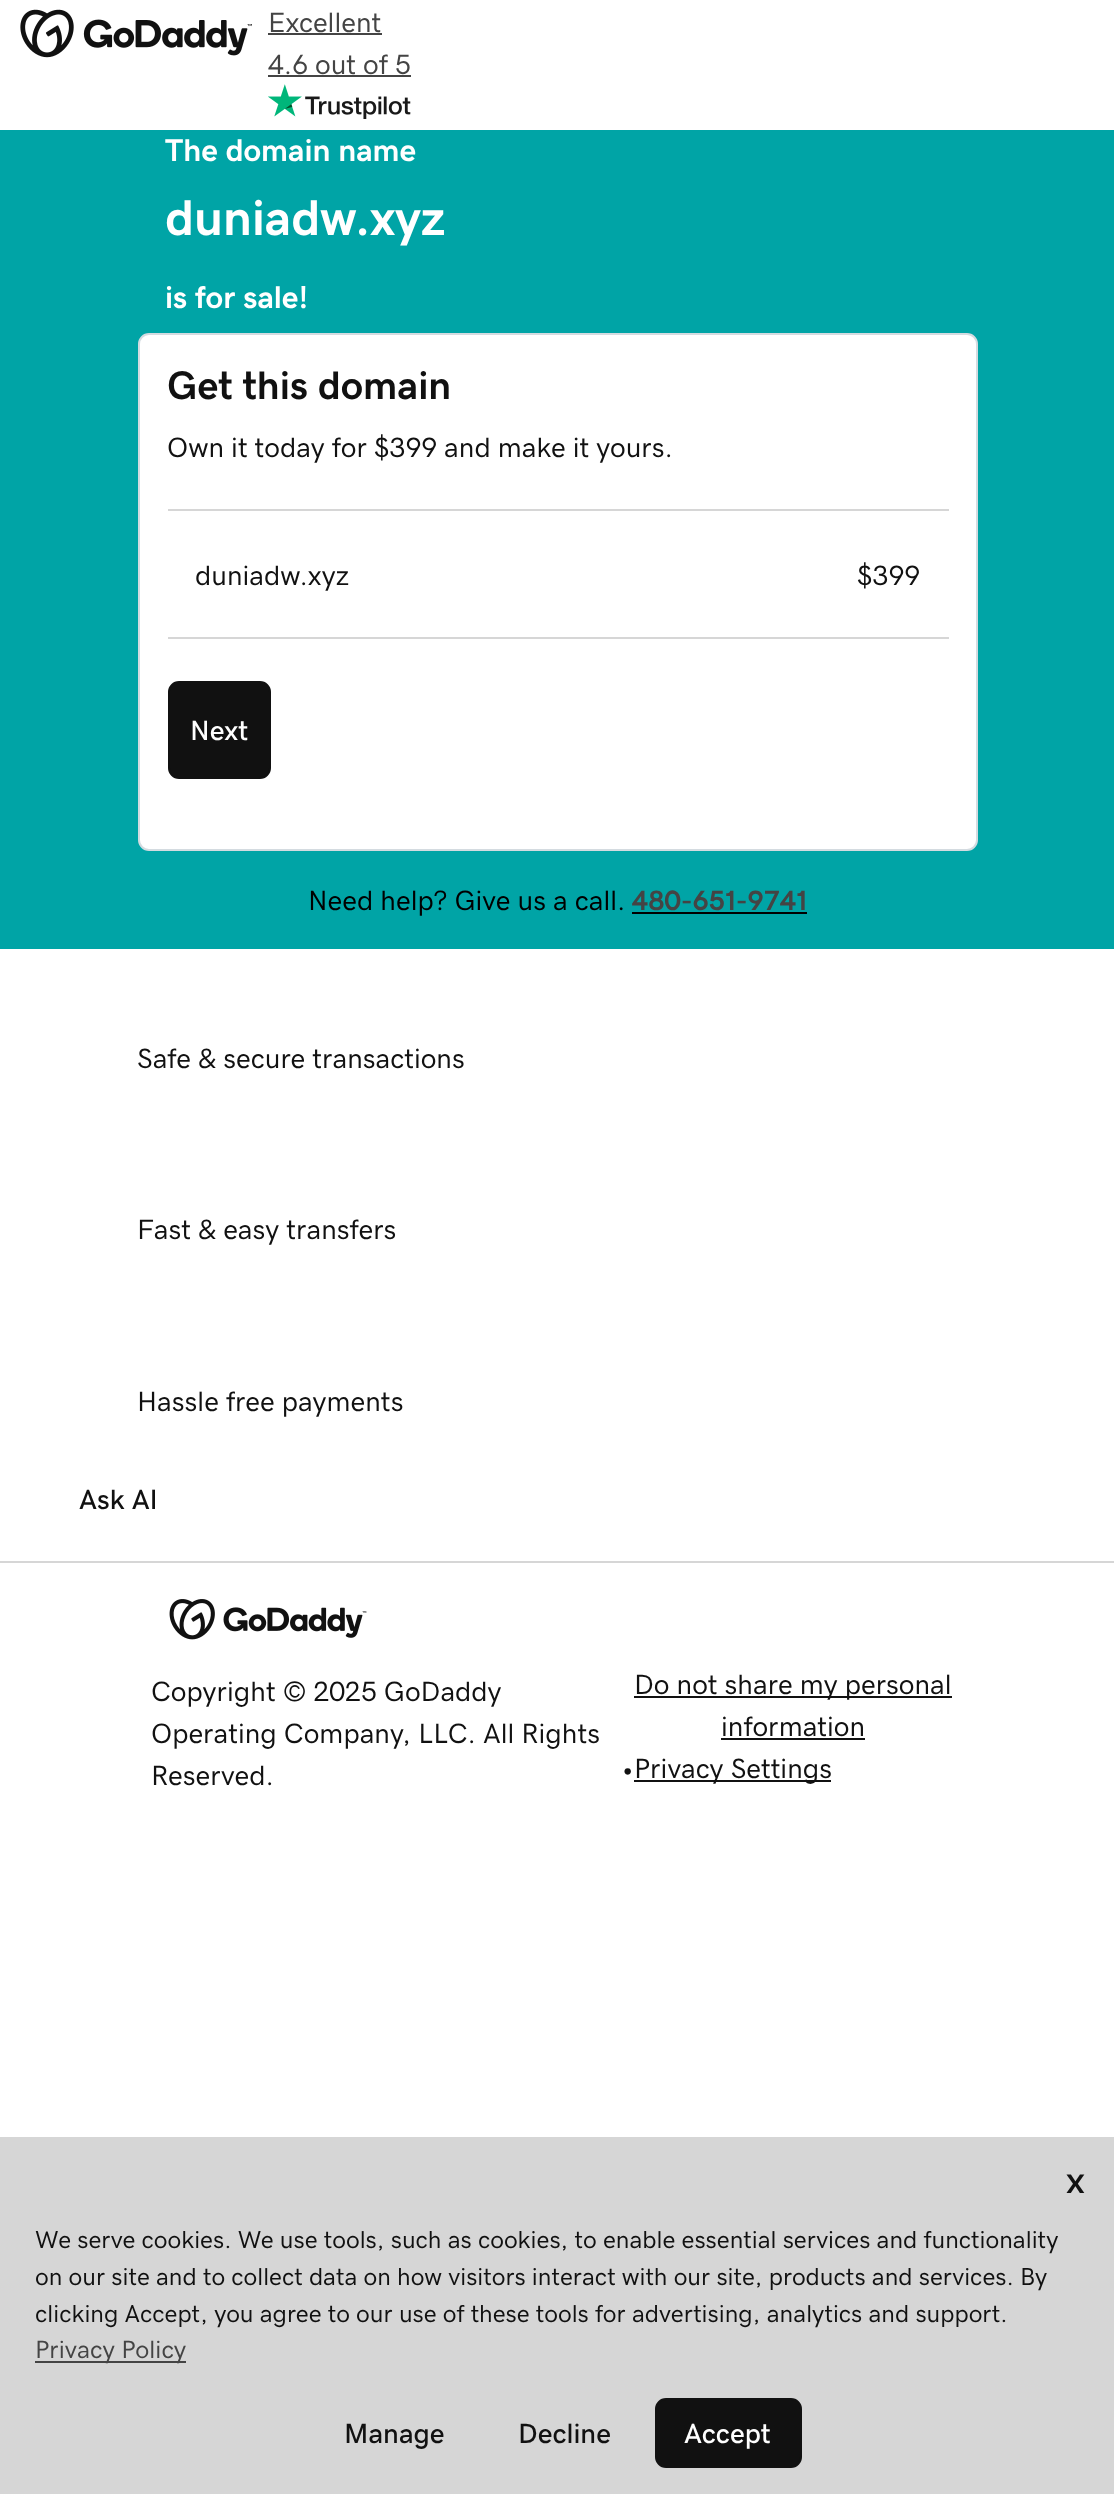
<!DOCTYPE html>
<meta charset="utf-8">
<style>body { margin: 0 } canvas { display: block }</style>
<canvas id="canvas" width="1114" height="2494"></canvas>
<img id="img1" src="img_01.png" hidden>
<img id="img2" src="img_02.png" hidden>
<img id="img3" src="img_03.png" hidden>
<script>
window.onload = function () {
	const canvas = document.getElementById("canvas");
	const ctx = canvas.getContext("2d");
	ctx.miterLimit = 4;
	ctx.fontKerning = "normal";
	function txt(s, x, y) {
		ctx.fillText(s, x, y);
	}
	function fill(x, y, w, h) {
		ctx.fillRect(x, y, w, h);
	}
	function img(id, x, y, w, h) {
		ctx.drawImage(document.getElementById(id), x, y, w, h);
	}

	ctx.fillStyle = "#FFFFFF";
	fill(0, 0, 1114, 2494);
	img("img1", 20, 9, 232, 49);
	ctx.fillStyle = "#444444";
	fill(268, 33, 114, 2);
	fill(268, 75, 143, 2);
	img("img2", 268, 84, 143, 35);
	ctx.fillStyle = "#00A4A6";
	fill(0, 130, 1114, 819);
	ctx.fillStyle = "#FFFFFF";
	ctx.beginPath();
	ctx.roundRect(139, 334, 838, 516, 10);
	ctx.fill();
	ctx.strokeStyle = "#D4DBE0";
	ctx.lineWidth = 2;
	ctx.stroke();
	ctx.fillStyle = "#D6D6D6";
	fill(168, 509, 781, 2);
	fill(168, 637, 781, 2);
	ctx.fillStyle = "#111111";
	ctx.beginPath();
	ctx.roundRect(169, 682, 101, 96, 10);
	ctx.fill();
	ctx.strokeStyle = "#111111";
	ctx.stroke();
	ctx.fillStyle = "#000000";
	fill(632, 912, 175, 2);
	ctx.fillStyle = "#D6D6D6";
	fill(0, 1561, 1114, 2);
	img("img3", 169, 1599, 198, 41);
	ctx.fillStyle = "#111111";
	fill(634, 1696, 318, 2);
	fill(721, 1738, 144, 2);
	fill(634, 1780, 197, 2);
	ctx.fillStyle = "#D6D6D6";
	fill(0, 2137, 1114, 357);
	ctx.fillStyle = "#444444";
	fill(35, 2361, 151, 2);
	ctx.fillStyle = "#111111";
	ctx.beginPath();
	ctx.roundRect(656, 2399, 145, 68, 10);
	ctx.fill();
	ctx.stroke();
	ctx.font = "28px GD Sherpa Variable";
	ctx.fillStyle = "#444444";
	txt("Excellent", 268, 32);
	txt("4.6 out of 5", 268, 74);
	ctx.font = "bold 31.5px GD Sherpa Variable";
	ctx.fillStyle = "#FFFFFF";
	txt("The domain name", 165, 161);
	ctx.font = "bold 50.5px GD Sherpa Variable";
	txt("duniadw.xyz", 165, 235);
	ctx.font = "bold 31.5px GD Sherpa Variable";
	txt("is for sale!", 165, 308);
	ctx.font = "bold 40px GD Sherpa Variable";
	ctx.fillStyle = "#111111";
	txt("Get this domain", 167, 399);
	ctx.font = "28px GD Sherpa Variable";
	txt("Own it today for $399 and make it yours.", 167, 457);
	txt("duniadw.xyz", 195, 585);
	txt("$399", 857, 585);
	ctx.font = "500 28px GD Sherpa Variable";
	ctx.fillStyle = "#FFFFFF";
	txt("Next", 190, 740);
	ctx.font = "28px GD Sherpa Variable";
	ctx.fillStyle = "#000000";
	txt("Need help? Give us a call.", 308, 910);
	ctx.font = "bold 28px GD Sherpa Variable";
	ctx.fillStyle = "#444444";
	txt("480-651-9741", 632, 910);
	ctx.font = "28px GD Sherpa Variable";
	ctx.fillStyle = "#111111";
	txt("Safe & secure transactions", 137, 1068);
	txt("Fast & easy transfers", 137, 1239);
	txt("Hassle free payments", 137, 1411);
	ctx.font = "500 28px GD Sherpa Variable";
	txt("Ask AI", 79, 1509);
	ctx.font = "28px GD Sherpa Variable";
	txt("Copyright © 2025 GoDaddy", 151, 1701);
	txt("Operating Company, LLC. All Rights", 151, 1743);
	txt("Reserved.", 151, 1785);
	txt("Do not share my personal", 634, 1694);
	txt("information", 721, 1736);
	txt("•", 622, 1778);
	txt("Privacy Settings", 634, 1778);
	ctx.font = "500 38px GD Sherpa Variable";
	txt("x", 1066, 2193);
	ctx.font = "24.5px GD Sherpa Variable";
	txt("We serve cookies. We use tools, such as cookies, to enable essential services and functionality", 35, 2248);
	txt("on our site and to collect data on how visitors interact with our site, products and services. By", 35, 2285);
	txt("clicking Accept, you agree to our use of these tools for advertising, analytics and support.", 35, 2322);
	ctx.font = "25px GD Sherpa Variable";
	ctx.fillStyle = "#444444";
	txt("Privacy Policy", 35, 2358);
	ctx.font = "500 28px GD Sherpa Variable";
	ctx.fillStyle = "#111111";
	txt("Manage", 344, 2443);
	txt("Decline", 518, 2443);
	ctx.fillStyle = "#FFFFFF";
	txt("Accept", 684, 2443);
};
</script>
